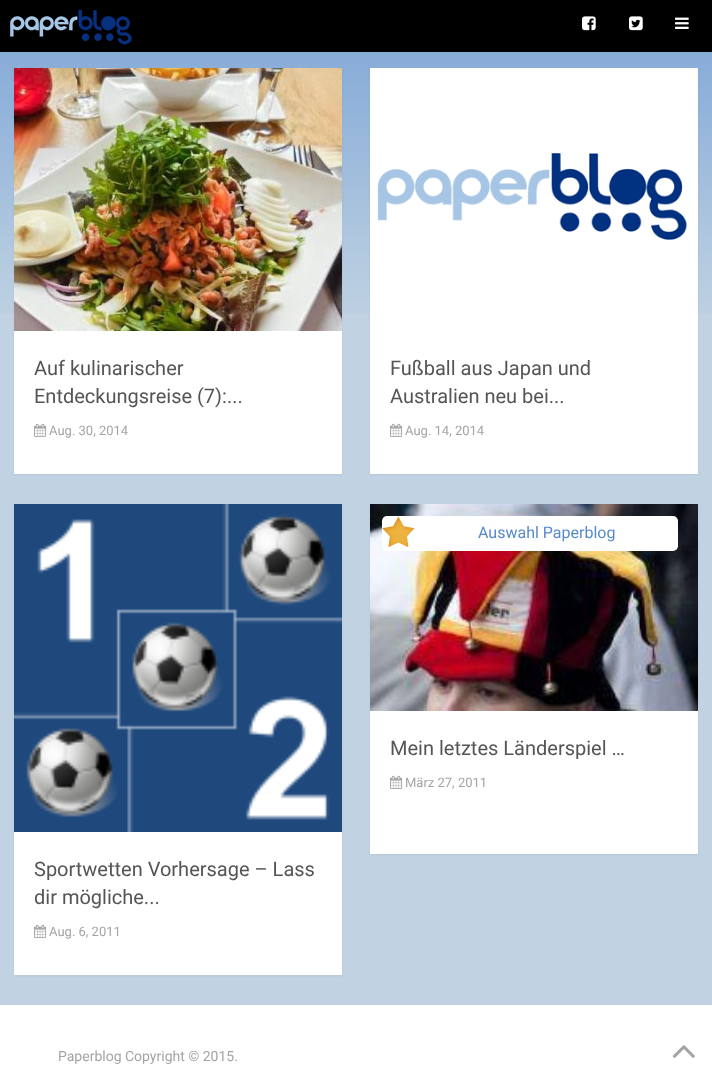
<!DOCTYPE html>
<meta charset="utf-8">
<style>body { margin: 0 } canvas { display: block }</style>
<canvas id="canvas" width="712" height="1067"></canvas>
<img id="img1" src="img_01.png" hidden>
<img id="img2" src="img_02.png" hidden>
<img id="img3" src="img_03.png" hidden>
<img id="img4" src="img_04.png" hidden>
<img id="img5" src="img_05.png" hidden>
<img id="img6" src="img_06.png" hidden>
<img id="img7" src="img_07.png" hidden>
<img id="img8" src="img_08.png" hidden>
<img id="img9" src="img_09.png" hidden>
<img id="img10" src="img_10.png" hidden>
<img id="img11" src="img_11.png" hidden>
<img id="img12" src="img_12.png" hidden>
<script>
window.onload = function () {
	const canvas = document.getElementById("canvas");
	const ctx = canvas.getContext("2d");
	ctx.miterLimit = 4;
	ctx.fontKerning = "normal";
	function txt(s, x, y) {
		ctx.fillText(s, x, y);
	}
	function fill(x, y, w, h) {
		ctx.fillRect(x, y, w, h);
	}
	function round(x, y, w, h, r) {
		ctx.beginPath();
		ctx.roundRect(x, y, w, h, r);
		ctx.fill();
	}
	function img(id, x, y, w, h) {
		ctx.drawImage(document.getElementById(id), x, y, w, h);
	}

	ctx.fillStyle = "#C1D3E2";
	fill(0, 0, 712, 1067);
	img("img1", 0, 52, 712, 262);
	ctx.fillStyle = "#000000";
	fill(0, 0, 712, 52);
	img("img2", 10, 10, 122, 35);
	img("img3", 582, 16, 14, 15);
	img("img4", 629, 16, 14, 15);
	img("img5", 675, 17, 14, 12);
	ctx.fillStyle = "rgba(0, 0, 0, 0.05)";
	ctx.filter = "blur(1px)";
	ctx.beginPath();
	ctx.rect(14, 69, 328, 406);
	ctx.fill();
	ctx.filter = "none";
	ctx.fillStyle = "#FFFFFF";
	fill(14, 331, 328, 143);
	img("img6", 14, 68, 328, 263);
	img("img7", 34, 423, 13, 14);
	ctx.fillStyle = "rgba(0, 0, 0, 0.05)";
	ctx.filter = "blur(1px)";
	ctx.beginPath();
	ctx.rect(370, 69, 328, 406);
	ctx.fill();
	ctx.filter = "none";
	ctx.fillStyle = "#FFFFFF";
	fill(370, 68, 328, 406);
	img("img8", 377, 153, 310, 87);
	img("img7", 390, 423, 13, 14);
	ctx.fillStyle = "rgba(0, 0, 0, 0.05)";
	ctx.filter = "blur(1px)";
	ctx.beginPath();
	ctx.rect(370, 505, 328, 350);
	ctx.fill();
	ctx.filter = "none";
	ctx.fillStyle = "#FFFFFF";
	fill(370, 711, 328, 143);
	img("img9", 370, 504, 328, 207);
	round(382, 516, 296, 35, 5);
	img("img10", 382, 516, 33, 31);
	img("img7", 390, 775, 13, 14);
	ctx.fillStyle = "rgba(0, 0, 0, 0.05)";
	ctx.filter = "blur(1px)";
	ctx.beginPath();
	ctx.rect(14, 505, 328, 471);
	ctx.fill();
	ctx.filter = "none";
	ctx.fillStyle = "#FFFFFF";
	fill(14, 832, 328, 143);
	img("img11", 14, 504, 328, 328);
	img("img7", 34, 924, 13, 14);
	fill(0, 1005, 712, 62);
	img("img12", 672, 1045, 23, 13);
	ctx.font = "20px Roboto";
	ctx.fillStyle = "#555555";
	txt("Auf kulinarischer", 34, 375);
	txt("Entdeckungsreise (7):...", 34, 403);
	ctx.font = "13px Roboto";
	ctx.fillStyle = "#A4A4A4";
	txt("Aug. 30, 2014", 49, 435);
	ctx.font = "20px Roboto";
	ctx.fillStyle = "#555555";
	txt("Fußball aus Japan und", 390, 375);
	txt("Australien neu bei...", 390, 403);
	ctx.font = "13px Roboto";
	ctx.fillStyle = "#A4A4A4";
	txt("Aug. 14, 2014", 405, 435);
	ctx.font = "16px Roboto";
	ctx.fillStyle = "#568ACB";
	txt("Auswahl Paperblog", 478, 538);
	ctx.font = "20px Roboto";
	ctx.fillStyle = "#555555";
	txt("Mein letztes Länderspiel …", 390, 755);
	ctx.font = "13px Roboto";
	ctx.fillStyle = "#A4A4A4";
	txt("März 27, 2011", 405, 787);
	ctx.font = "20px Roboto";
	ctx.fillStyle = "#555555";
	txt("Sportwetten Vorhersage – Lass", 34, 876);
	txt("dir mögliche...", 34, 904);
	ctx.font = "13px Roboto";
	ctx.fillStyle = "#A4A4A4";
	txt("Aug. 6, 2011", 49, 936);
	ctx.font = "14px Roboto";
	txt("Paperblog Copyright © 2015.", 58, 1061);
};
</script>
